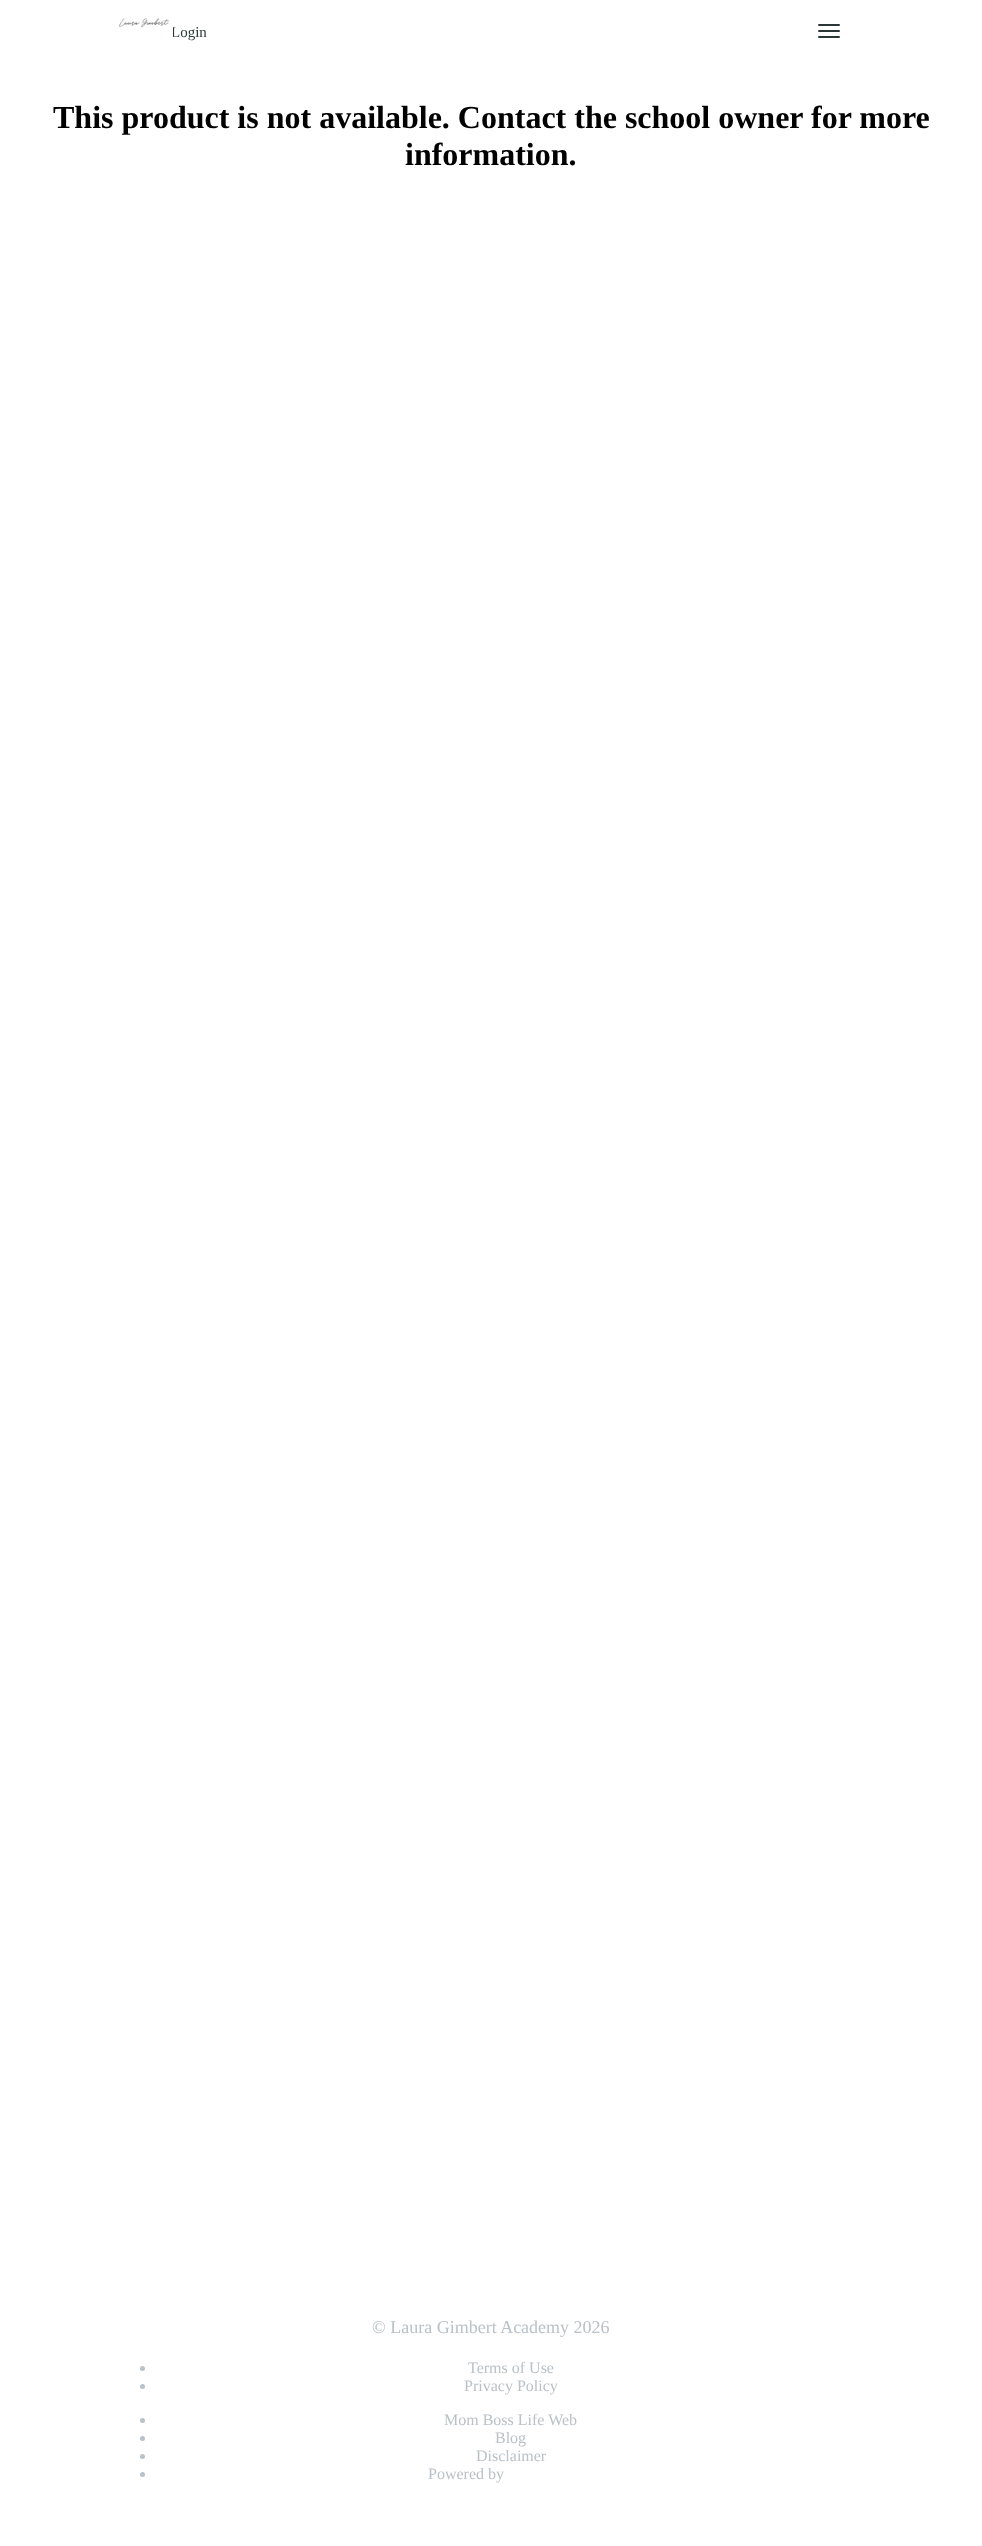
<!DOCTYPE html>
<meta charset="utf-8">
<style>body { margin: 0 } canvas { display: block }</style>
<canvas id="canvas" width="982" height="2546"></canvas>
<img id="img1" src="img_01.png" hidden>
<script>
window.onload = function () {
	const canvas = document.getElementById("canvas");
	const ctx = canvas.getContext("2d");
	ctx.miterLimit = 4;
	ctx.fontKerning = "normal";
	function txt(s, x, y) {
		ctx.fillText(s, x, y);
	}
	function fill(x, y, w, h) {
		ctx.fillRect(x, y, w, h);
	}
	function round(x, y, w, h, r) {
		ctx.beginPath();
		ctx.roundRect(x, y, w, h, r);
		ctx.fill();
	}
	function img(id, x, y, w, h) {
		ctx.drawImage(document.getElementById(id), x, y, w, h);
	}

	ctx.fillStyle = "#FFFFFF";
	fill(0, 0, 982, 2546);
	ctx.fillStyle = "#2B3636";
	round(818, 24, 22, 2, 1);
	round(818, 30, 22, 2, 1);
	round(818, 36, 22, 2, 1);
	ctx.fillStyle = "#BAC1C7";
	ctx.beginPath();
	ctx.arc(142.5, 2368.5, 2.5, 0, Math.PI * 2);
	ctx.fill();
	ctx.beginPath();
	ctx.arc(142.5, 2386.5, 2.5, 0, Math.PI * 2);
	ctx.fill();
	ctx.beginPath();
	ctx.arc(142.5, 2420.5, 2.5, 0, Math.PI * 2);
	ctx.fill();
	ctx.beginPath();
	ctx.arc(142.5, 2438.5, 2.5, 0, Math.PI * 2);
	ctx.fill();
	ctx.beginPath();
	ctx.arc(142.5, 2456.5, 2.5, 0, Math.PI * 2);
	ctx.fill();
	ctx.beginPath();
	ctx.arc(142.5, 2474.5, 2.5, 0, Math.PI * 2);
	ctx.fill();
	ctx.font = "15px Liberation Serif";
	ctx.fillStyle = "#2B3636";
	txt("Login", 171, 37);
	img("img1", 118, 18, 55, 19);
	ctx.font = "bold 32px Liberation Serif";
	ctx.fillStyle = "#000000";
	txt("This product is not available. Contact the school owner for more", 53, 128);
	txt("information.", 405, 165);
	ctx.font = "18px Liberation Serif";
	ctx.fillStyle = "#BAC1C7";
	txt("© Laura Gimbert Academy 2026", 372, 2333);
	ctx.font = "16px Liberation Serif";
	txt("Terms of Use", 468, 2373);
	txt("Privacy Policy", 464, 2391);
	txt("Mom Boss Life Web", 444, 2425);
	txt("Blog", 495, 2443);
	txt("Disclaimer", 476, 2461);
	txt("Powered by", 428, 2479);
};
</script>
